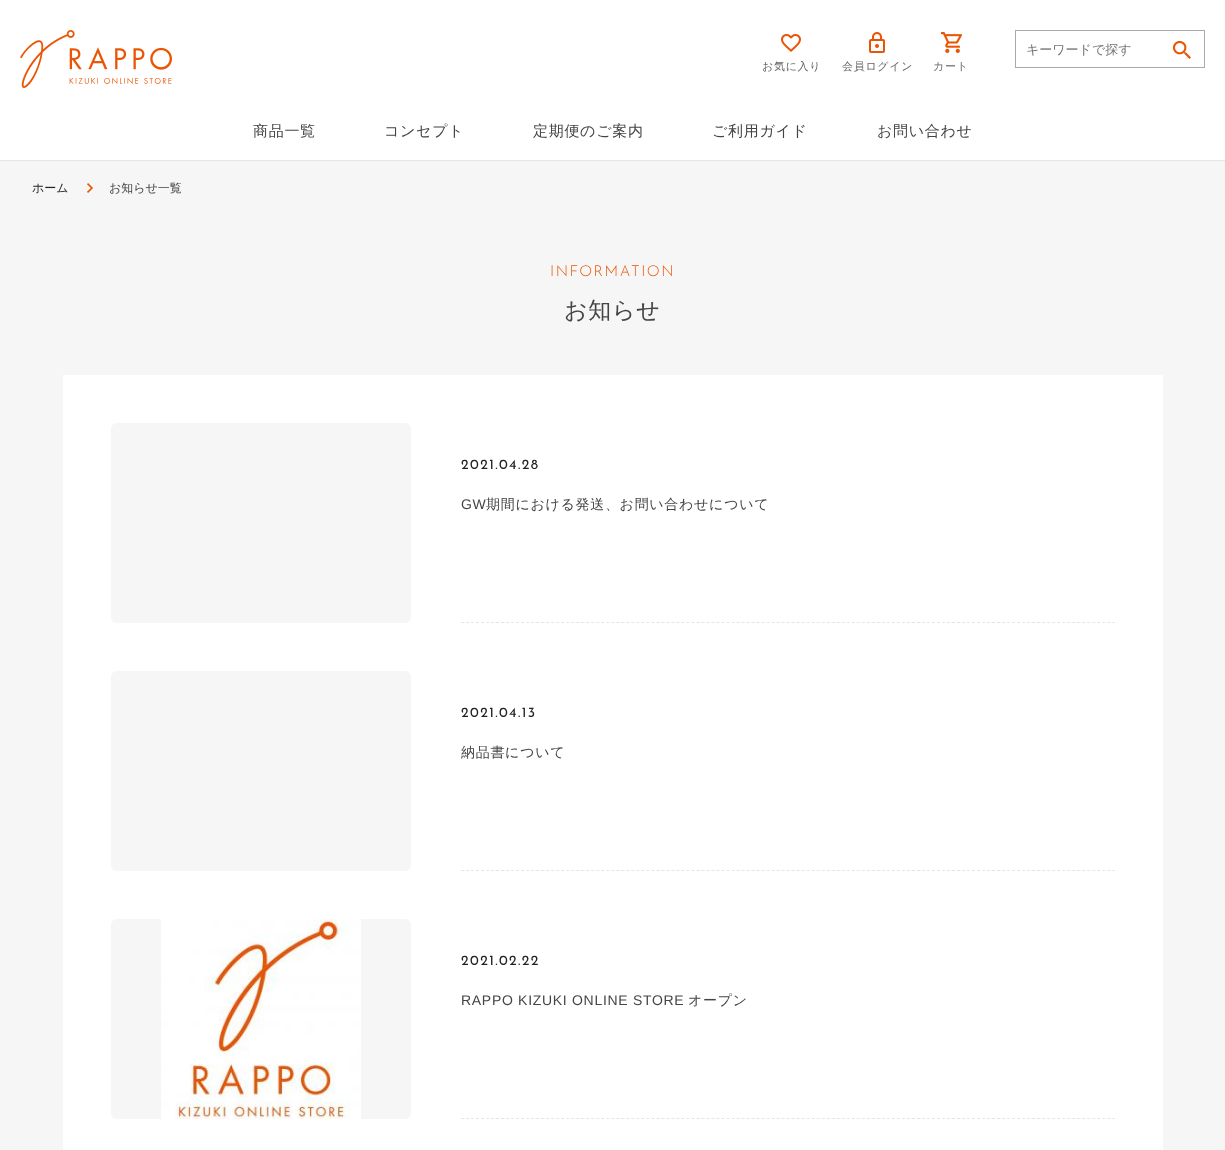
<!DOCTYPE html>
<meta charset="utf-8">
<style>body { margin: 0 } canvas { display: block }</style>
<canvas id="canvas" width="1225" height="1150"></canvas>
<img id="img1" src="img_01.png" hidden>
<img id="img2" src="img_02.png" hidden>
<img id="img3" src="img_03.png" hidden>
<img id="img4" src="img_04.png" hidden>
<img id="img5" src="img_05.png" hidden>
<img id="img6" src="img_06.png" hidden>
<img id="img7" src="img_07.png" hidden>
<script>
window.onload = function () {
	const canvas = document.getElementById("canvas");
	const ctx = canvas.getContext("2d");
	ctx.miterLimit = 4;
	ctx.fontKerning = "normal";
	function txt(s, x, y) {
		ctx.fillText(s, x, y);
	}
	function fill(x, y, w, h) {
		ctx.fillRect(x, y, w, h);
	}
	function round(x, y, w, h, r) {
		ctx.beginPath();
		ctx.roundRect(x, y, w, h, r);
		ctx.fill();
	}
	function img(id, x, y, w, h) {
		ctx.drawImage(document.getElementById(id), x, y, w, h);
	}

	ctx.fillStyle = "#FFFFFF";
	fill(0, 0, 1225, 1150);
	img("img1", 20, 30, 152, 58);
	ctx.strokeStyle = "#A9A9A9";
	ctx.strokeRect(1015.5, 30.5, 189, 37);
	img("img2", 1173, 41, 18, 18);
	img("img3", 781, 34, 20, 18);
	img("img4", 869, 32, 16, 21);
	img("img5", 941, 32, 21, 21);
	ctx.fillStyle = "#F6F6F6";
	fill(0, 161, 1225, 989);
	ctx.fillStyle = "#E5E5E5";
	fill(0, 160, 1225, 1);
	img("img6", 87, 183, 6, 10);
	ctx.fillStyle = "#FFFFFF";
	fill(63, 375, 1100, 775);
	ctx.fillStyle = "#F6F6F6";
	round(111, 423, 300, 200, 6);
	ctx.beginPath();
	ctx.moveTo(461, 622.5);
	ctx.lineTo(1115, 622.5);
	ctx.strokeStyle = "#E5E5E5";
	ctx.setLineDash([3, 2.01]);
	ctx.stroke();
	round(111, 671, 300, 200, 6);
	ctx.beginPath();
	ctx.moveTo(461, 870.5);
	ctx.lineTo(1115, 870.5);
	ctx.stroke();
	round(111, 919, 300, 200, 6);
	img("img7", 161, 919, 200, 200);
	ctx.beginPath();
	ctx.moveTo(461, 1118.5);
	ctx.lineTo(1115, 1118.5);
	ctx.stroke();
	ctx.font = "500 13px WenQuanYi Zen Hei";
	ctx.fillStyle = "#757575";
	txt("キーワードで探す", 1026, 54);
	ctx.letterSpacing = "0.7px";
	ctx.font = "500 11px WenQuanYi Zen Hei";
	ctx.fillStyle = "#666666";
	txt("お気に入り", 762, 70);
	txt("会員ログイン", 842, 70);
	txt("カート", 933, 70);
	ctx.font = "500 15px WenQuanYi Zen Hei";
	ctx.fillStyle = "#444444";
	txt("商品一覧", 253, 136);
	txt("コンセプト", 384, 136);
	txt("定期便のご案内", 533, 136);
	txt("ご利用ガイド", 712, 136);
	txt("お問い合わせ", 877, 136);
	ctx.letterSpacing = "0px";
	ctx.font = "500 12px WenQuanYi Zen Hei";
	ctx.fillStyle = "#222222";
	txt("ホーム", 32, 192);
	ctx.fillStyle = "#444444";
	txt("お知らせ一覧", 109, 192);
	ctx.letterSpacing = "1.5px";
	ctx.font = "300 15px Josefin Sans";
	ctx.fillStyle = "#E95504";
	txt("INFORMATION", 550, 276);
	ctx.letterSpacing = "0.7px";
	ctx.font = "500 23px WenQuanYi Zen Hei";
	ctx.fillStyle = "#444444";
	txt("お知らせ", 564, 318);
	ctx.letterSpacing = "1.4px";
	ctx.font = "14px Josefin Sans";
	ctx.fillStyle = "#222222";
	txt("2021.04.28", 461, 469);
	ctx.letterSpacing = "0.7px";
	ctx.font = "14px Liberation Sans";
	ctx.fillStyle = "#444444";
	txt("GW", 461, 509);
	ctx.font = "500 14px WenQuanYi Zen Hei";
	txt("期間における発送、お問い合わせについて", 486, 509);
	ctx.letterSpacing = "1.4px";
	ctx.font = "14px Josefin Sans";
	ctx.fillStyle = "#222222";
	txt("2021.04.13", 461, 717);
	ctx.letterSpacing = "0.7px";
	ctx.font = "500 14px WenQuanYi Zen Hei";
	ctx.fillStyle = "#444444";
	txt("納品書について", 461, 757);
	ctx.letterSpacing = "1.4px";
	ctx.font = "14px Josefin Sans";
	ctx.fillStyle = "#222222";
	txt("2021.02.22", 461, 965);
	ctx.letterSpacing = "0.7px";
	ctx.font = "14px Liberation Sans";
	ctx.fillStyle = "#444444";
	txt("RAPPO KIZUKI ONLINE STORE", 461, 1005);
	ctx.font = "500 14px WenQuanYi Zen Hei";
	txt("オープン", 688, 1005);
};
</script>
